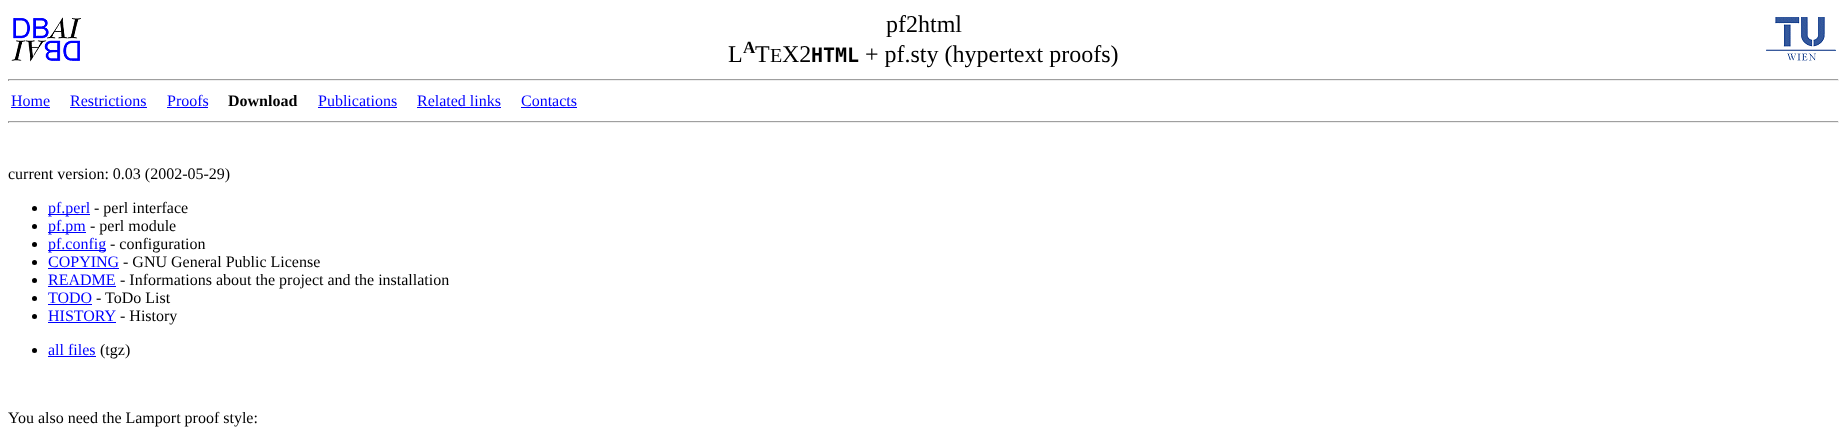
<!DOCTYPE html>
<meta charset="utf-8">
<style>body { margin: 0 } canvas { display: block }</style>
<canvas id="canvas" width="1847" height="441"></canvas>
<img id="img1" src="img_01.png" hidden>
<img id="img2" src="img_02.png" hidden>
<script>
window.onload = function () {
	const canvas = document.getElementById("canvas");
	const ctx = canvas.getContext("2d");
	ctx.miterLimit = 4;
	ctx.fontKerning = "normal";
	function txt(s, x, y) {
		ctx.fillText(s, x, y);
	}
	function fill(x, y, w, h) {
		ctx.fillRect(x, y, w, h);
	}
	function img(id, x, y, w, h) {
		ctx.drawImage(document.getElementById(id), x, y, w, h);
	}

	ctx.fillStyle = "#FFFFFF";
	fill(0, 0, 1847, 441);
	img("img1", 11, 17, 70, 45);
	img("img2", 1766, 17, 70, 44);
	ctx.fillStyle = "#9F9F9F";
	fill(8, 79, 1831, 1);
	ctx.fillStyle = "#EEEEEE";
	fill(1838, 79, 1, 2);
	fill(8, 80, 1831, 1);
	ctx.fillStyle = "#9F9F9F";
	fill(8, 79, 1, 2);
	ctx.fillStyle = "#0000FF";
	fill(11, 107, 39, 1);
	fill(70, 107, 77, 1);
	fill(167, 107, 41, 1);
	fill(318, 107, 79, 1);
	fill(417, 107, 84, 1);
	fill(521, 107, 56, 1);
	ctx.fillStyle = "#9F9F9F";
	fill(8, 121, 1831, 1);
	ctx.fillStyle = "#EEEEEE";
	fill(1838, 121, 1, 2);
	fill(8, 122, 1831, 1);
	ctx.fillStyle = "#9F9F9F";
	fill(8, 121, 1, 2);
	ctx.fillStyle = "#000000";
	ctx.beginPath();
	ctx.arc(34.5, 208.5, 2.5, 0, Math.PI * 2);
	ctx.fill();
	ctx.fillStyle = "#0000FF";
	fill(48, 214, 42, 1);
	ctx.fillStyle = "#000000";
	ctx.beginPath();
	ctx.arc(34.5, 226.5, 2.5, 0, Math.PI * 2);
	ctx.fill();
	ctx.fillStyle = "#0000FF";
	fill(48, 232, 38, 1);
	ctx.fillStyle = "#000000";
	ctx.beginPath();
	ctx.arc(34.5, 244.5, 2.5, 0, Math.PI * 2);
	ctx.fill();
	ctx.fillStyle = "#0000FF";
	fill(48, 250, 58, 1);
	ctx.fillStyle = "#000000";
	ctx.beginPath();
	ctx.arc(34.5, 262.5, 2.5, 0, Math.PI * 2);
	ctx.fill();
	ctx.fillStyle = "#0000FF";
	fill(48, 268, 71, 1);
	ctx.fillStyle = "#000000";
	ctx.beginPath();
	ctx.arc(34.5, 280.5, 2.5, 0, Math.PI * 2);
	ctx.fill();
	ctx.fillStyle = "#0000FF";
	fill(48, 286, 68, 1);
	ctx.fillStyle = "#000000";
	ctx.beginPath();
	ctx.arc(34.5, 298.5, 2.5, 0, Math.PI * 2);
	ctx.fill();
	ctx.fillStyle = "#0000FF";
	fill(48, 304, 44, 1);
	ctx.fillStyle = "#000000";
	ctx.beginPath();
	ctx.arc(34.5, 316.5, 2.5, 0, Math.PI * 2);
	ctx.fill();
	ctx.fillStyle = "#0000FF";
	fill(48, 322, 68, 1);
	ctx.fillStyle = "#000000";
	ctx.beginPath();
	ctx.arc(34.5, 350.5, 2.5, 0, Math.PI * 2);
	ctx.fill();
	ctx.fillStyle = "#0000FF";
	fill(48, 356, 48, 1);
	ctx.font = "24px Liberation Serif";
	ctx.fillStyle = "#000000";
	txt("pf2html", 886, 32);
	txt("L", 728, 62);
	ctx.font = "bold 17px Liberation Serif";
	txt("A", 743, 53);
	ctx.font = "24px Liberation Serif";
	txt("T", 755, 62);
	ctx.font = "20px Liberation Serif";
	txt("E", 770, 62);
	ctx.font = "24px Liberation Serif";
	txt("X2", 782, 62);
	ctx.font = "bold 20px DejaVu Sans Mono";
	txt("HTML", 811, 62);
	ctx.font = "24px Liberation Serif";
	txt("+ pf.sty (hypertext proofs)", 865, 62);
	ctx.font = "16px Liberation Serif";
	ctx.fillStyle = "#0000FF";
	txt("Home", 11, 106);
	txt("Restrictions", 70, 106);
	txt("Proofs", 167, 106);
	ctx.font = "bold 16px Liberation Serif";
	ctx.fillStyle = "#000000";
	txt("Download", 228, 106);
	ctx.font = "16px Liberation Serif";
	ctx.fillStyle = "#0000FF";
	txt("Publications", 318, 106);
	txt("Related links", 417, 106);
	txt("Contacts", 521, 106);
	ctx.fillStyle = "#000000";
	txt("current version: 0.03 (2002-05-29)", 8, 179);
	ctx.fillStyle = "#0000FF";
	txt("pf.perl", 48, 213);
	ctx.fillStyle = "#000000";
	txt("- perl interface", 94, 213);
	ctx.fillStyle = "#0000FF";
	txt("pf.pm", 48, 231);
	ctx.fillStyle = "#000000";
	txt("- perl module", 90, 231);
	ctx.fillStyle = "#0000FF";
	txt("pf.config", 48, 249);
	ctx.fillStyle = "#000000";
	txt("- configuration", 110, 249);
	ctx.fillStyle = "#0000FF";
	txt("COPYING", 48, 267);
	ctx.fillStyle = "#000000";
	txt("- GNU General Public License", 123, 267);
	ctx.fillStyle = "#0000FF";
	txt("README", 48, 285);
	ctx.fillStyle = "#000000";
	txt("- Informations about the project and the installation", 120, 285);
	ctx.fillStyle = "#0000FF";
	txt("TODO", 48, 303);
	ctx.fillStyle = "#000000";
	txt("- ToDo List", 96, 303);
	ctx.fillStyle = "#0000FF";
	txt("HISTORY", 48, 321);
	ctx.fillStyle = "#000000";
	txt("- History", 120, 321);
	ctx.fillStyle = "#0000FF";
	txt("all files", 48, 355);
	ctx.fillStyle = "#000000";
	txt("(tgz)", 100, 355);
	txt("You also need the Lamport proof style:", 8, 423);
};
</script>
